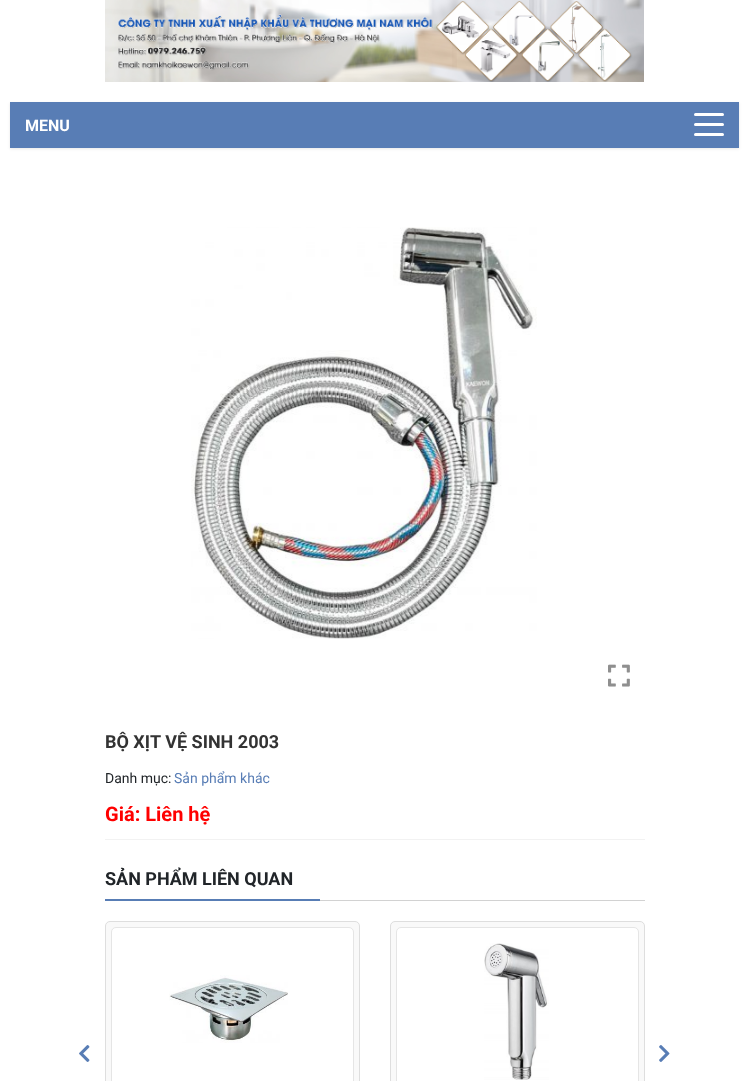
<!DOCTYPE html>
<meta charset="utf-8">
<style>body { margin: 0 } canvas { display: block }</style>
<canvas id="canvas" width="749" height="1081"></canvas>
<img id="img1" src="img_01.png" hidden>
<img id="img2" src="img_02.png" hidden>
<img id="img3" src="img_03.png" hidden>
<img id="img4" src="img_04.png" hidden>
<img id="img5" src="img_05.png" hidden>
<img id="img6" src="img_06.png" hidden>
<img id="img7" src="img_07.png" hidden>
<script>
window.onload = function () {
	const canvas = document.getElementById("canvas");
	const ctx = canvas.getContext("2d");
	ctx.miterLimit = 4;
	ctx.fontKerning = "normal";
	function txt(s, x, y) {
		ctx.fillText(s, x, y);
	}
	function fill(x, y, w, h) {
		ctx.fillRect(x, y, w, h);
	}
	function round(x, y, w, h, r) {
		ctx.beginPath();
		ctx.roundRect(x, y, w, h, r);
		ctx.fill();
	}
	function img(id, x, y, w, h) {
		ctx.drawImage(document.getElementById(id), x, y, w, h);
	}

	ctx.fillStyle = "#FFFFFF";
	fill(0, 0, 749, 1081);
	img("img1", 105, 0, 539, 82);
	ctx.fillStyle = "rgba(0, 0, 0, 0.09)";
	ctx.filter = "blur(1.5px)";
	ctx.beginPath();
	ctx.rect(10, 103, 729, 46);
	ctx.fill();
	ctx.filter = "none";
	ctx.fillStyle = "#587DB5";
	fill(10, 102, 729, 46);
	ctx.fillStyle = "#FFFFFF";
	round(694, 133, 30, 3, 1.5);
	round(694, 113, 30, 3, 1.5);
	round(694, 123, 30, 3, 1.5);
	img("img2", 191, 227, 346, 412);
	img("img3", 608, 664, 22, 23);
	ctx.fillStyle = "#F2F2F2";
	fill(105, 839, 540, 1);
	ctx.fillStyle = "#D2D2D2";
	fill(320, 900, 325, 1);
	ctx.fillStyle = "#587DB5";
	fill(105, 899, 215, 2);
	img("img4", 79, 1045, 11, 17);
	ctx.fillStyle = "#F9F9F9";
	ctx.beginPath();
	ctx.roundRect(105.5, 921.5, 254, 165, 4.5);
	ctx.fill();
	ctx.strokeStyle = "#DEDEDE";
	ctx.stroke();
	ctx.fillStyle = "#FFFFFF";
	ctx.beginPath();
	ctx.roundRect(111.5, 927.5, 242, 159, 4.5);
	ctx.fill();
	ctx.strokeStyle = "#E5E5E5";
	ctx.stroke();
	img("img5", 169, 975, 119, 68);
	ctx.fillStyle = "#F9F9F9";
	ctx.beginPath();
	ctx.roundRect(390.5, 921.5, 254, 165, 4.5);
	ctx.fill();
	ctx.strokeStyle = "#DEDEDE";
	ctx.stroke();
	ctx.fillStyle = "#FFFFFF";
	ctx.beginPath();
	ctx.roundRect(396.5, 927.5, 242, 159, 4.5);
	ctx.fill();
	ctx.strokeStyle = "#E5E5E5";
	ctx.stroke();
	img("img6", 484, 943, 65, 137);
	img("img7", 659, 1045, 11, 17);
	ctx.font = "bold 16px Roboto";
	txt("MENU", 25, 131);
	ctx.font = "bold 18px Roboto";
	ctx.fillStyle = "#333333";
	txt("BỘ XỊT VỆ SINH 2003", 105, 748);
	ctx.font = "14px Roboto";
	ctx.fillStyle = "#212529";
	txt("Danh mục:", 105, 783);
	ctx.fillStyle = "#587DB5";
	txt("Sản phẩm khác", 174, 783);
	ctx.font = "bold 20px Roboto";
	ctx.fillStyle = "#FF0000";
	txt("Giá: Liên hệ", 105, 821);
	ctx.font = "bold 18px Roboto";
	ctx.fillStyle = "#212529";
	txt("SẢN PHẨM LIÊN QUAN", 105, 885);
};
</script>
